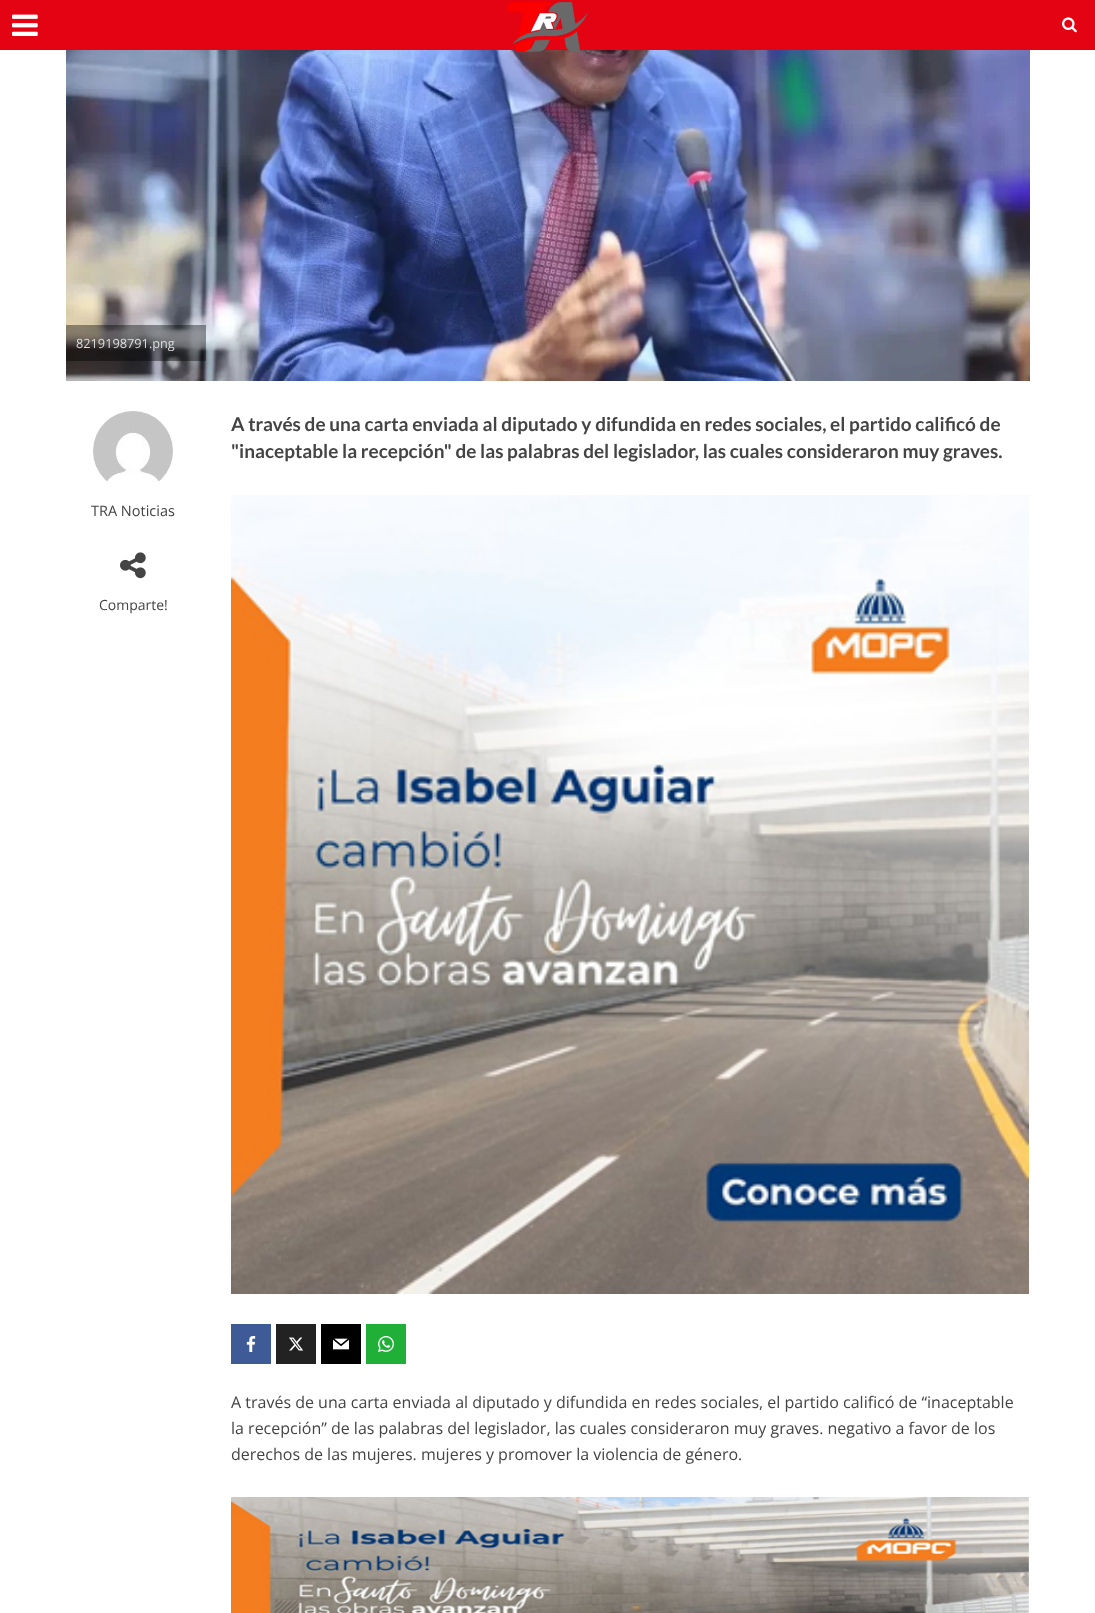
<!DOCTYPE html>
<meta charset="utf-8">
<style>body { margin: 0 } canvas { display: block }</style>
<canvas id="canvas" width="1095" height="1613"></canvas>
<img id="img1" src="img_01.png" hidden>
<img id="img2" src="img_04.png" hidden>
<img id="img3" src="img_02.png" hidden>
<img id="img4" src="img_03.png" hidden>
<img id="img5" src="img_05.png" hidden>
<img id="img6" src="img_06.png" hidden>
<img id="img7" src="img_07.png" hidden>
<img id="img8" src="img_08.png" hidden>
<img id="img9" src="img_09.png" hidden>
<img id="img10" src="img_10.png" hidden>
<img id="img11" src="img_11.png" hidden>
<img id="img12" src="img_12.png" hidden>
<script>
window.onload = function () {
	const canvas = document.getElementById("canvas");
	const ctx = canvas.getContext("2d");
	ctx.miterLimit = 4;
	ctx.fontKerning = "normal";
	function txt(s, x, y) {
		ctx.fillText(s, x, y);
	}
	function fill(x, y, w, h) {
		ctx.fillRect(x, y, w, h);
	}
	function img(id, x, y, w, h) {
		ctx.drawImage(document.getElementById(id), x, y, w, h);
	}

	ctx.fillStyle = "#FFFFFF";
	fill(0, 0, 1095, 1613);
	ctx.fillStyle = "#E30313";
	fill(0, 0, 1095, 50);
	img("img1", 12, 14, 26, 22);
	img("img2", 66, 50, 964, 331);
	img("img3", 507, 2, 81, 51);
	img("img4", 1062, 17, 15, 16);
	ctx.fillStyle = "rgba(0, 0, 0, 0.4)";
	fill(66, 325, 140, 36);
	img("img5", 93, 411, 80, 71);
	img("img6", 120, 552, 26, 27);
	img("img7", 231, 495, 798, 799);
	ctx.fillStyle = "#3E5B98";
	fill(231, 1324, 40, 40);
	img("img8", 246, 1336, 10, 16);
	ctx.fillStyle = "#222222";
	fill(276, 1324, 40, 40);
	img("img9", 289, 1337, 15, 14);
	ctx.fillStyle = "#000000";
	fill(321, 1324, 40, 40);
	img("img10", 333, 1338, 16, 12);
	ctx.fillStyle = "#20B038";
	fill(366, 1324, 40, 40);
	img("img11", 378, 1336, 16, 16);
	img("img12", 231, 1497, 798, 116);
	ctx.font = "12.75px Open Sans";
	ctx.fillStyle = "#DCDCDC";
	txt("8219198791.png", 76, 348);
	ctx.font = "14.5px Open Sans";
	ctx.fillStyle = "#444444";
	txt("TRA Noticias", 91, 516);
	ctx.font = "14px Open Sans";
	txt("Comparte!", 99, 610);
	ctx.font = "bold 19px Lato";
	txt("A través de una carta enviada al diputado y difundida en redes sociales, el partido calificó de", 231, 431);
	txt("\"inaceptable la recepción\" de las palabras del legislador, las cuales consideraron muy graves.", 231, 458);
	ctx.font = "16px Open Sans";
	txt("A través de una carta enviada al diputado y difundida en redes sociales, el partido calificó de “inaceptable", 231, 1408);
	txt("la recepción” de las palabras del legislador, las cuales consideraron muy graves. negativo a favor de los", 231, 1434);
	txt("derechos de las mujeres. mujeres y promover la violencia de género.", 231, 1460);
};
</script>
